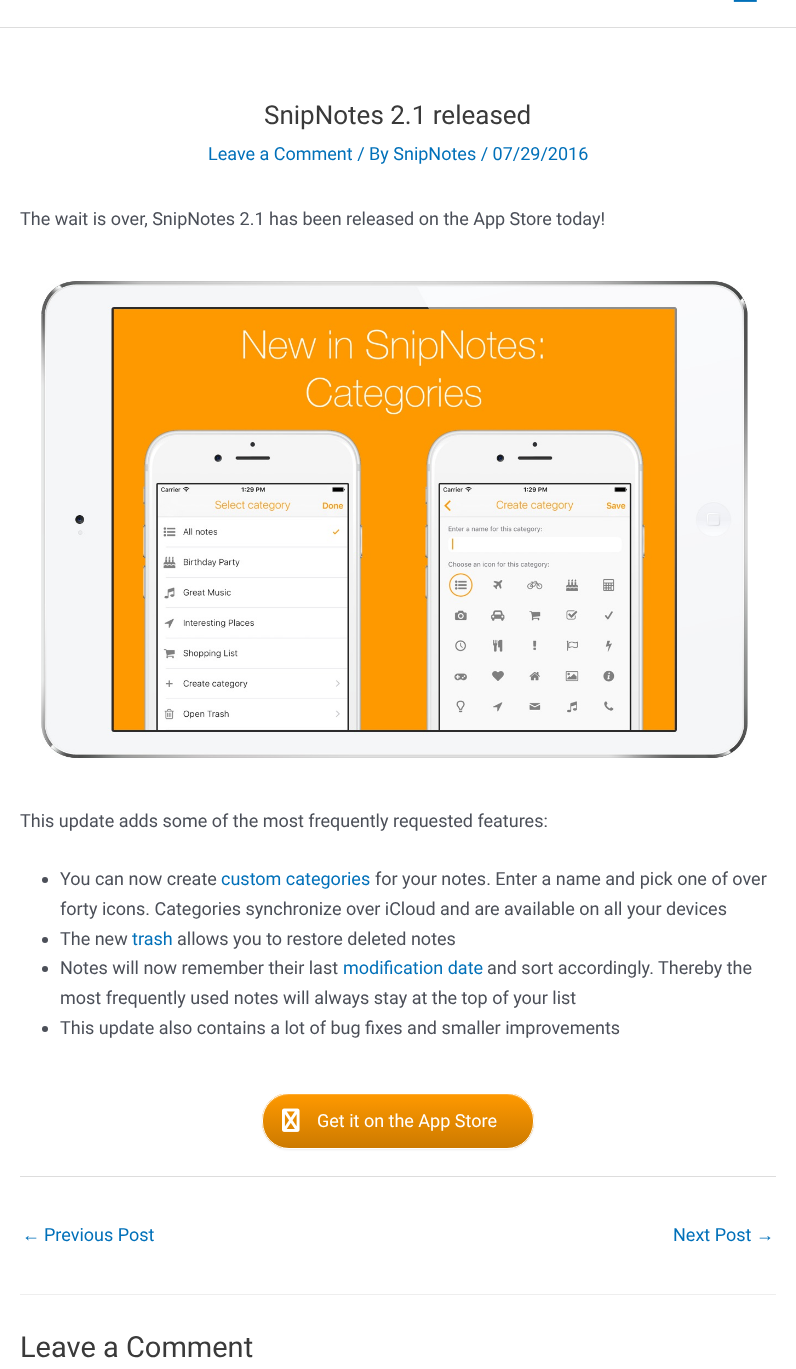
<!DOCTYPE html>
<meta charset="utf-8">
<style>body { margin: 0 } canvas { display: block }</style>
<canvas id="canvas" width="796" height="1369"></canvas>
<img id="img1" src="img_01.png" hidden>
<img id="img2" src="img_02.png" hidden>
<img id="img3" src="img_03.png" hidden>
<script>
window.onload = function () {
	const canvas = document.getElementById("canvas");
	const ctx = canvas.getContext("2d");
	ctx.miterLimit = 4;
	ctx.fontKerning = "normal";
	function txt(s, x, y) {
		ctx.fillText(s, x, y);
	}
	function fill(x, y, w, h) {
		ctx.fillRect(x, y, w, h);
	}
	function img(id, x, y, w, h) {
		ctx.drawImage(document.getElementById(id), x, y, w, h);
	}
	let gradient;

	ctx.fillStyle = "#FFFFFF";
	fill(0, 0, 796, 1369);
	ctx.fillStyle = "#DDDDDD";
	fill(0, 27, 796, 1);
	img("img1", 733, 0, 24, 2);
	img("img2", 41, 281, 707, 477);
	ctx.fillStyle = "#4B4F58";
	ctx.beginPath();
	ctx.arc(45, 880, 3, 0, Math.PI * 2);
	ctx.fill();
	ctx.beginPath();
	ctx.arc(45, 940, 3, 0, Math.PI * 2);
	ctx.fill();
	ctx.beginPath();
	ctx.arc(45, 969, 3, 0, Math.PI * 2);
	ctx.fill();
	ctx.beginPath();
	ctx.arc(45, 1029, 3, 0, Math.PI * 2);
	ctx.fill();
	ctx.fillStyle = "rgba(0, 0, 0, 0.07)";
	ctx.filter = "blur(1px)";
	ctx.beginPath();
	ctx.roundRect(262, 1094, 272, 56, 27);
	ctx.fill();
	ctx.filter = "none";
	ctx.save();
	ctx.beginPath();
	ctx.roundRect(262, 1093, 272, 56, 27);
	ctx.clip();
	gradient = ctx.createLinearGradient(263, 1148, 263, 1094);
	gradient.addColorStop(0, "#CC7A00");
	gradient.addColorStop(1, "#FF9900");
	ctx.fillStyle = gradient;
	fill(262, 1094, 272, 54);
	ctx.restore();
	ctx.fillStyle = "rgba(255, 255, 255, 0.2)";
	ctx.beginPath();
	ctx.moveTo(289, 1095);
	ctx.lineTo(507, 1095);
	ctx.bezierCurveTo(521, 1095, 533, 1107, 533, 1121);
	ctx.lineTo(533, 1120);
	ctx.bezierCurveTo(533, 1106, 521, 1094, 507, 1094);
	ctx.lineTo(289, 1094);
	ctx.bezierCurveTo(275, 1094, 263, 1106, 263, 1120);
	ctx.lineTo(263, 1121);
	ctx.bezierCurveTo(263, 1107, 275, 1095, 289, 1095);
	ctx.closePath();
	ctx.fill();
	ctx.beginPath();
	ctx.roundRect(262.5, 1093.5, 271, 55, 26.5);
	ctx.strokeStyle = "#FFFFFF";
	ctx.stroke();
	img("img3", 282, 1108, 18, 24);
	ctx.fillStyle = "#DDDDDD";
	fill(20, 1176, 756, 1);
	ctx.fillStyle = "#EEEEEE";
	fill(20, 1294, 756, 1);
	ctx.font = "26px Roboto";
	ctx.fillStyle = "#3A3A3A";
	txt("SnipNotes 2.1 released", 264, 124);
	ctx.font = "18px Roboto";
	ctx.fillStyle = "#0170B9";
	txt("Leave a Comment / By SnipNotes / 07/29/2016", 208, 160);
	ctx.fillStyle = "#4B4F58";
	txt("The wait is over, SnipNotes 2.1 has been released on the App Store today!", 20, 225);
	txt("This update adds some of the most frequently requested features:", 20, 827);
	txt("You can now create", 60, 885);
	ctx.fillStyle = "#0170B9";
	txt("custom categories", 221, 885);
	ctx.fillStyle = "#4B4F58";
	txt("for your notes. Enter a name and pick one of over", 375, 885);
	txt("forty icons. Categories synchronize over iCloud and are available on all your devices", 60, 915);
	txt("The new", 60, 945);
	ctx.fillStyle = "#0170B9";
	txt("trash", 132, 945);
	ctx.fillStyle = "#4B4F58";
	txt("allows you to restore deleted notes", 177, 945);
	txt("Notes will now remember their last", 60, 974);
	ctx.fillStyle = "#0170B9";
	txt("modification date", 343, 974);
	ctx.fillStyle = "#4B4F58";
	txt("and sort accordingly. Thereby the", 487, 974);
	txt("most frequently used notes will always stay at the top of your list", 60, 1004);
	txt("This update also contains a lot of bug fixes and smaller improvements", 60, 1034);
	ctx.fillStyle = "#FFFFFF";
	txt("Get it on the App Store", 317, 1127);
	ctx.font = "18px Liberation Sans";
	ctx.fillStyle = "#0170B9";
	txt("←", 22, 1241);
	ctx.font = "18px Roboto";
	txt("Previous Post", 44, 1241);
	txt("Next Post", 673, 1241);
	ctx.font = "18px Liberation Sans";
	txt("→", 756, 1241);
	ctx.font = "29px Roboto";
	ctx.fillStyle = "#3A3A3A";
	txt("Leave a Comment", 20, 1357);
};
</script>
